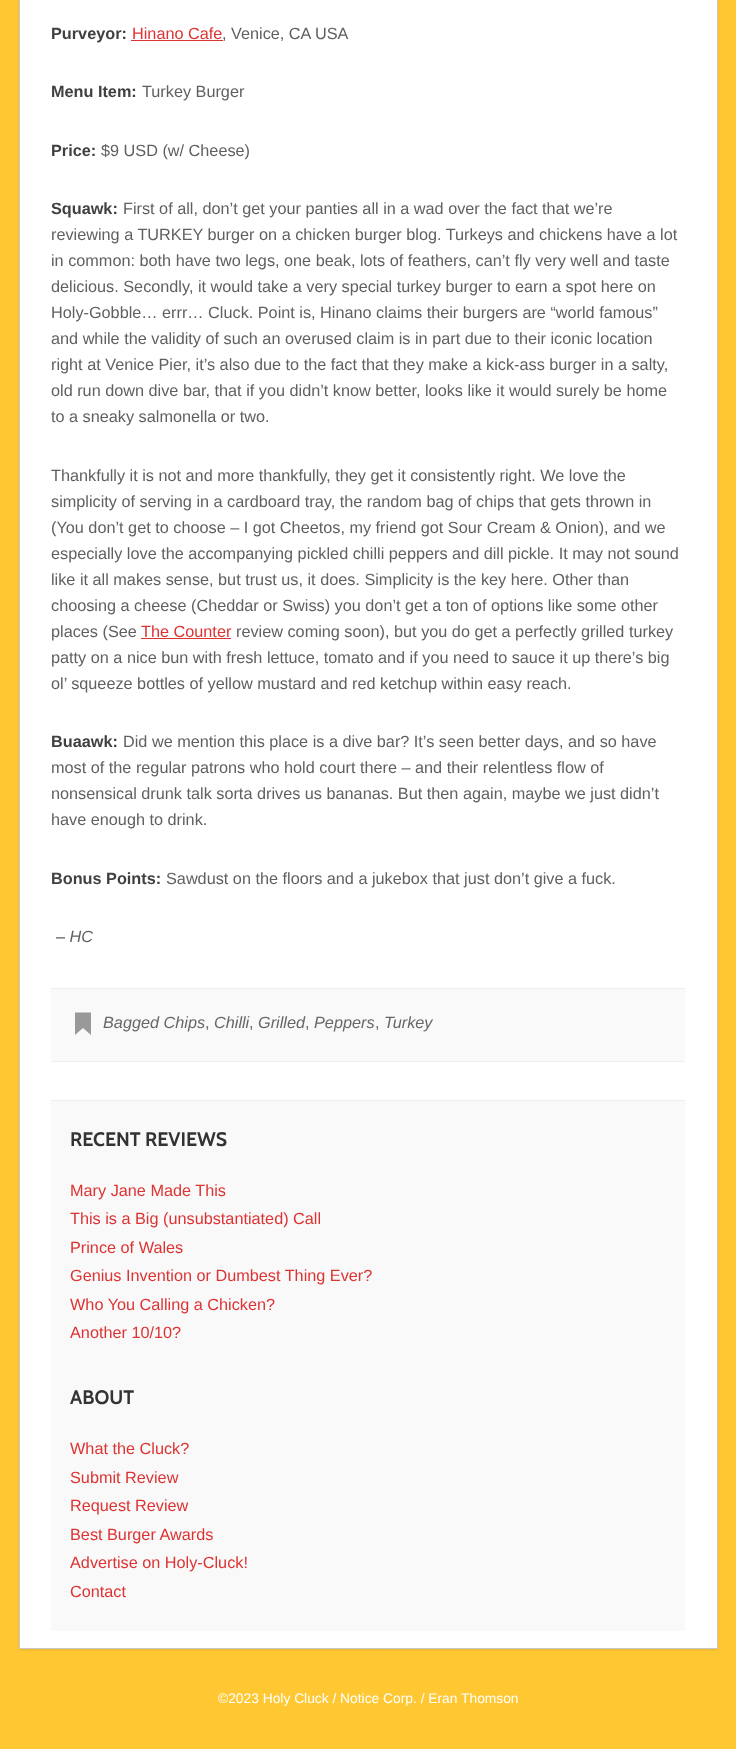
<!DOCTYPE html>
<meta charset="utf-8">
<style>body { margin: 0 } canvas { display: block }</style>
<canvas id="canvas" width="736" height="1749"></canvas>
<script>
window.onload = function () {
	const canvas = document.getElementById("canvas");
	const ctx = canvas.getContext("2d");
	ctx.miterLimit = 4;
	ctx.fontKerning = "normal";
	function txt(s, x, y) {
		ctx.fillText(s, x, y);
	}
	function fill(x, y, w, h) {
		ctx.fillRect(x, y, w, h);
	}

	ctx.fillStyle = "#FFC833";
	fill(0, 0, 736, 1749);
	ctx.fillStyle = "rgba(0, 0, 0, 0.1)";
	ctx.filter = "blur(1px)";
	ctx.beginPath();
	ctx.rect(19, -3, 699, 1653);
	ctx.fill();
	ctx.filter = "none";
	ctx.fillStyle = "#FFFFFF";
	ctx.beginPath();
	ctx.rect(19.5, -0.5, 698, 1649);
	ctx.fill();
	ctx.strokeStyle = "#CBC9C7";
	ctx.stroke();
	ctx.fillStyle = "#DD3333";
	fill(131, 40, 92, 1);
	fill(141, 638, 90, 1);
	ctx.fillStyle = "#F9F9F9";
	fill(51, 989, 634, 72);
	ctx.fillStyle = "#EEEEEE";
	fill(51, 988, 634, 1);
	fill(51, 1061, 634, 1);
	ctx.fillStyle = "#999999";
	ctx.beginPath();
	ctx.moveTo(75, 1012.5);
	ctx.lineTo(75, 1035);
	ctx.lineTo(83, 1028);
	ctx.lineTo(91, 1035);
	ctx.lineTo(91, 1012.5);
	ctx.closePath();
	ctx.fill();
	ctx.fillStyle = "#F9F9F9";
	fill(51, 1101, 634, 530);
	ctx.fillStyle = "#EEEEEE";
	fill(51, 1100, 634, 1);
	ctx.font = "bold 16.25px Liberation Sans";
	ctx.fillStyle = "#404040";
	txt("Purveyor:", 51, 39);
	ctx.font = "16.25px Liberation Sans";
	ctx.fillStyle = "#DD3333";
	txt("Hinano Cafe", 132, 39);
	ctx.fillStyle = "#606060";
	txt(", Venice, CA USA", 222, 39);
	ctx.font = "bold 16.25px Liberation Sans";
	ctx.fillStyle = "#404040";
	txt("Menu Item:", 51, 97);
	ctx.font = "16.25px Liberation Sans";
	ctx.fillStyle = "#606060";
	txt("Turkey Burger", 142, 97);
	ctx.font = "bold 16.25px Liberation Sans";
	ctx.fillStyle = "#404040";
	txt("Price:", 51, 156);
	ctx.font = "16.25px Liberation Sans";
	ctx.fillStyle = "#606060";
	txt("$9 USD (w/ Cheese)", 101, 156);
	ctx.font = "bold 16.25px Liberation Sans";
	ctx.fillStyle = "#404040";
	txt("Squawk:", 51, 214);
	ctx.font = "16.25px Liberation Sans";
	ctx.fillStyle = "#606060";
	txt("First of all, don’t get your panties all in a wad over the fact that we’re", 123, 214);
	txt("reviewing a TURKEY burger on a chicken burger blog. Turkeys and chickens have a lot", 51, 240);
	txt("in common: both have two legs, one beak, lots of feathers, can’t fly very well and taste", 51, 266);
	txt("delicious. Secondly, it would take a very special turkey burger to earn a spot here on", 51, 292);
	txt("Holy-Gobble… errr… Cluck. Point is, Hinano claims their burgers are “world famous”", 51, 318);
	txt("and while the validity of such an overused claim is in part due to their iconic location", 51, 344);
	txt("right at Venice Pier, it’s also due to the fact that they make a kick-ass burger in a salty,", 51, 370);
	txt("old run down dive bar, that if you didn’t know better, looks like it would surely be home", 51, 396);
	txt("to a sneaky salmonella or two.", 51, 422);
	txt("Thankfully it is not and more thankfully, they get it consistently right. We love the", 51, 481);
	txt("simplicity of serving in a cardboard tray, the random bag of chips that gets thrown in", 51, 507);
	txt("(You don’t get to choose – I got Cheetos, my friend got Sour Cream & Onion), and we", 51, 533);
	txt("especially love the accompanying pickled chilli peppers and dill pickle. It may not sound", 51, 559);
	txt("like it all makes sense, but trust us, it does. Simplicity is the key here. Other than", 51, 585);
	txt("choosing a cheese (Cheddar or Swiss) you don’t get a ton of options like some other", 51, 611);
	txt("places (See", 51, 637);
	ctx.fillStyle = "#DD3333";
	txt("The Counter", 141, 637);
	ctx.fillStyle = "#606060";
	txt("review coming soon), but you do get a perfectly grilled turkey", 236, 637);
	txt("patty on a nice bun with fresh lettuce, tomato and if you need to sauce it up there’s big", 51, 663);
	txt("ol’ squeeze bottles of yellow mustard and red ketchup within easy reach.", 51, 689);
	ctx.font = "bold 16.25px Liberation Sans";
	ctx.fillStyle = "#404040";
	txt("Buaawk:", 51, 747);
	ctx.font = "16.25px Liberation Sans";
	ctx.fillStyle = "#606060";
	txt("Did we mention this place is a dive bar? It’s seen better days, and so have", 123, 747);
	txt("most of the regular patrons who hold court there – and their relentless flow of", 51, 773);
	txt("nonsensical drunk talk sorta drives us bananas. But then again, maybe we just didn’t", 51, 799);
	txt("have enough to drink.", 51, 825);
	ctx.font = "bold 16.25px Liberation Sans";
	ctx.fillStyle = "#404040";
	txt("Bonus Points:", 51, 884);
	ctx.font = "16.25px Liberation Sans";
	ctx.fillStyle = "#606060";
	txt("Sawdust on the floors and a jukebox that just don’t give a fuck.", 166, 884);
	ctx.font = "italic 16.25px Liberation Sans";
	txt("– HC", 56, 942);
	ctx.fillStyle = "#666666";
	txt("Bagged Chips", 103, 1028);
	ctx.font = "16.25px Liberation Sans";
	txt(",", 205, 1028);
	ctx.font = "italic 16.25px Liberation Sans";
	txt("Chilli", 214, 1028);
	ctx.font = "16.25px Liberation Sans";
	txt(",", 249, 1028);
	ctx.font = "italic 16.25px Liberation Sans";
	txt("Grilled", 258, 1028);
	ctx.font = "16.25px Liberation Sans";
	txt(",", 305, 1028);
	ctx.font = "italic 16.25px Liberation Sans";
	txt("Peppers", 314, 1028);
	ctx.font = "16.25px Liberation Sans";
	txt(",", 375, 1028);
	ctx.font = "italic 16.25px Liberation Sans";
	txt("Turkey", 384, 1028);
	ctx.font = "bold 19.5px Cabin";
	ctx.fillStyle = "#333333";
	txt("RECENT REVIEWS", 70, 1146);
	ctx.font = "16.25px Liberation Sans";
	ctx.fillStyle = "#DD3333";
	txt("Mary Jane Made This", 70, 1196);
	txt("This is a Big (unsubstantiated) Call", 70, 1224);
	txt("Prince of Wales", 70, 1253);
	txt("Genius Invention or Dumbest Thing Ever?", 70, 1281);
	txt("Who You Calling a Chicken?", 70, 1310);
	txt("Another 10/10?", 70, 1338);
	ctx.font = "bold 19.5px Cabin";
	ctx.fillStyle = "#333333";
	txt("ABOUT", 70, 1404);
	ctx.font = "16.25px Liberation Sans";
	ctx.fillStyle = "#DD3333";
	txt("What the Cluck?", 70, 1454);
	txt("Submit Review", 70, 1483);
	txt("Request Review", 70, 1511);
	txt("Best Burger Awards", 70, 1540);
	txt("Advertise on Holy-Cluck!", 70, 1568);
	txt("Contact", 70, 1597);
	ctx.font = "13.8px Liberation Sans";
	ctx.fillStyle = "#FFFFFF";
	txt("©2023 Holy Cluck / Notice Corp. / Eran Thomson", 218, 1703);
};
</script>
